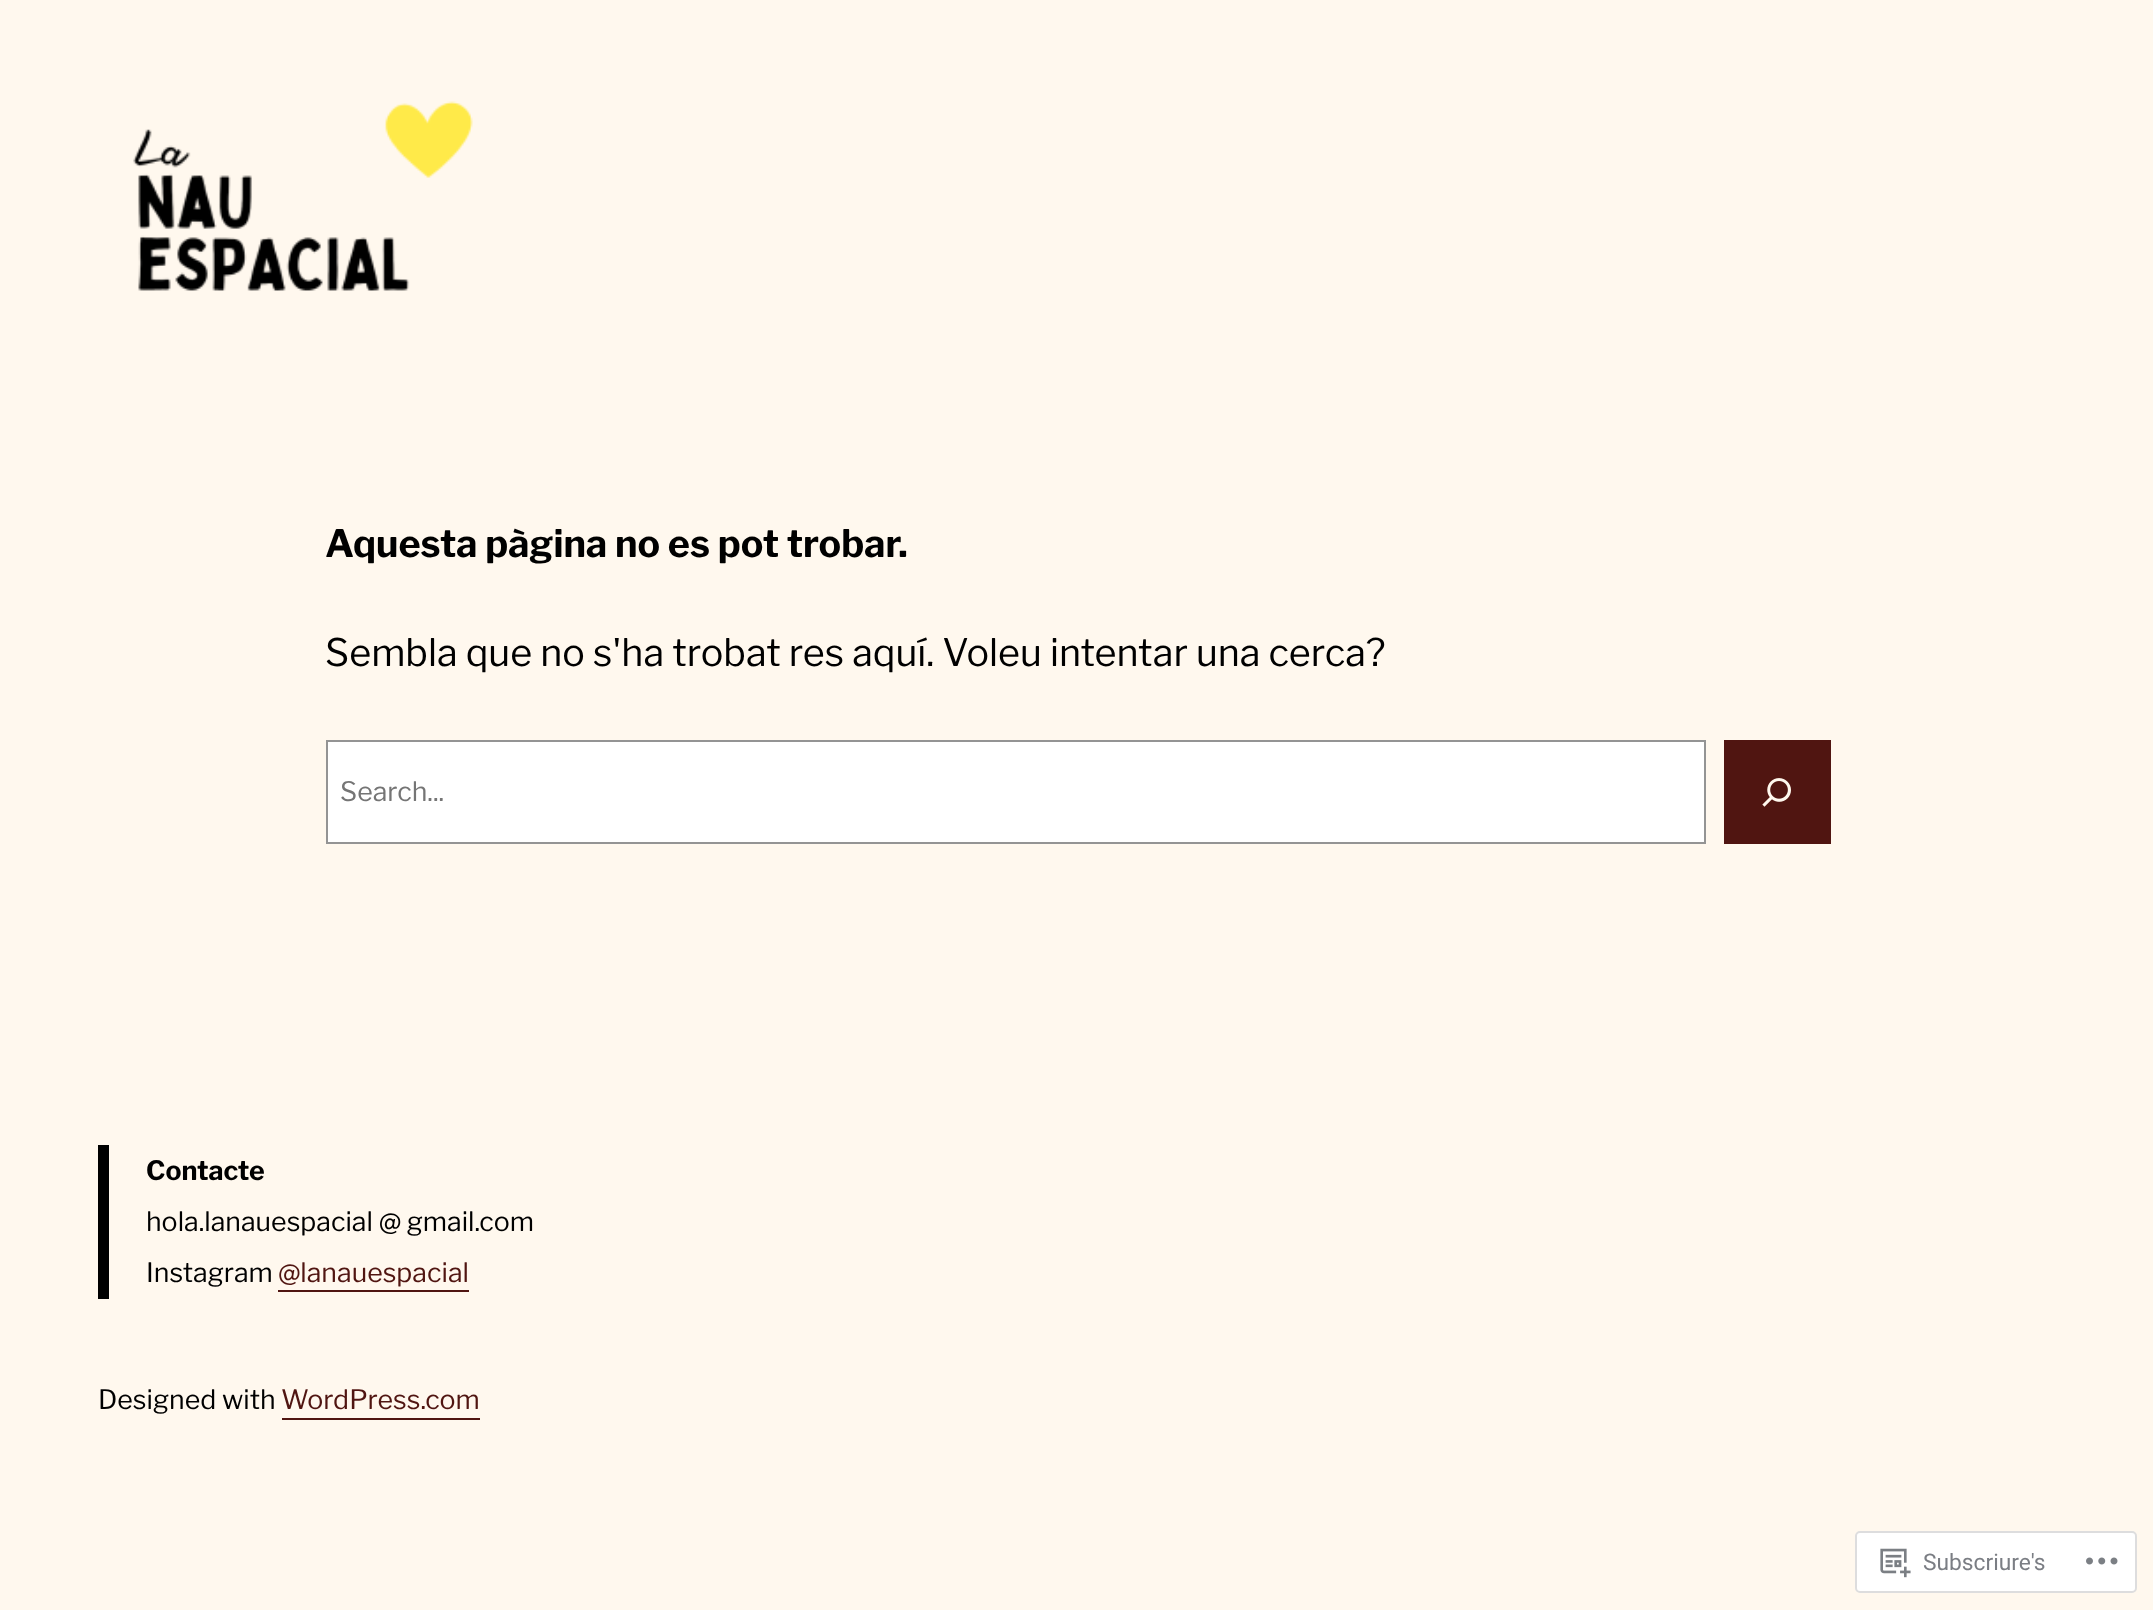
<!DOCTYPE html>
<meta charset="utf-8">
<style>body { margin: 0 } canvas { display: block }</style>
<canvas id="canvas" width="2153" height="1610"></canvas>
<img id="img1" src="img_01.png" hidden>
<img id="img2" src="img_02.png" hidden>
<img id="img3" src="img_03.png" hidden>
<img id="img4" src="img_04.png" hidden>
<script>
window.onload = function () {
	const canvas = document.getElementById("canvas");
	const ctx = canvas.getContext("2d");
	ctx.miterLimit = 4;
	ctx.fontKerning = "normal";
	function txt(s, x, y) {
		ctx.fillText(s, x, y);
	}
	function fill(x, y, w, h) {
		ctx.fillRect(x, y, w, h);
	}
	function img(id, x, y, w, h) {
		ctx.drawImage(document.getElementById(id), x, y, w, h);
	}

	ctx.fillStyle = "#FFF8EE";
	fill(0, 0, 2153, 1610);
	img("img1", 133, 101, 340, 190);
	ctx.fillStyle = "#FFFFFF";
	ctx.beginPath();
	ctx.rect(327, 741, 1378, 102);
	ctx.fill();
	ctx.strokeStyle = "#949494";
	ctx.lineWidth = 2;
	ctx.stroke();
	ctx.fillStyle = "#501511";
	fill(1724, 740, 107, 104);
	img("img2", 1762, 778, 29, 29);
	ctx.fillStyle = "#000000";
	fill(98, 1145, 11, 154);
	ctx.fillStyle = "#501511";
	fill(278, 1290, 191, 2);
	fill(282, 1418, 198, 2);
	ctx.fillStyle = "#FFFFFF";
	ctx.beginPath();
	ctx.roundRect(1856, 1532, 280, 60, 4);
	ctx.fill();
	ctx.strokeStyle = "#DDDDDE";
	ctx.stroke();
	img("img3", 1880, 1548, 31, 30);
	img("img4", 2086, 1557, 32, 8);
	ctx.font = "bold 37.75px Libre Franklin";
	ctx.fillStyle = "#000000";
	txt("Aquesta pàgina no es pot trobar.", 325, 557);
	ctx.font = "37.75px Libre Franklin";
	txt("Sembla que no s'ha trobat res aquí. Voleu intentar una cerca?", 325, 666);
	ctx.font = "26.75px Libre Franklin";
	ctx.fillStyle = "#757575";
	txt("Search...", 340, 801);
	ctx.font = "bold 26.75px Libre Franklin";
	ctx.fillStyle = "#000000";
	txt("Contacte", 146, 1180);
	ctx.font = "26.75px Libre Franklin";
	txt("hola.lanauespacial @ gmail.com", 146, 1231);
	txt("Instagram", 146, 1282);
	ctx.fillStyle = "#501511";
	txt("@lanauespacial", 278, 1282);
	ctx.fillStyle = "#000000";
	txt("Designed with", 98, 1409);
	ctx.fillStyle = "#501511";
	txt("WordPress.com", 281, 1409);
	ctx.font = "22.75px Roboto";
	ctx.fillStyle = "#7B7E84";
	txt("Subscriure's", 1923, 1570);
};
</script>
